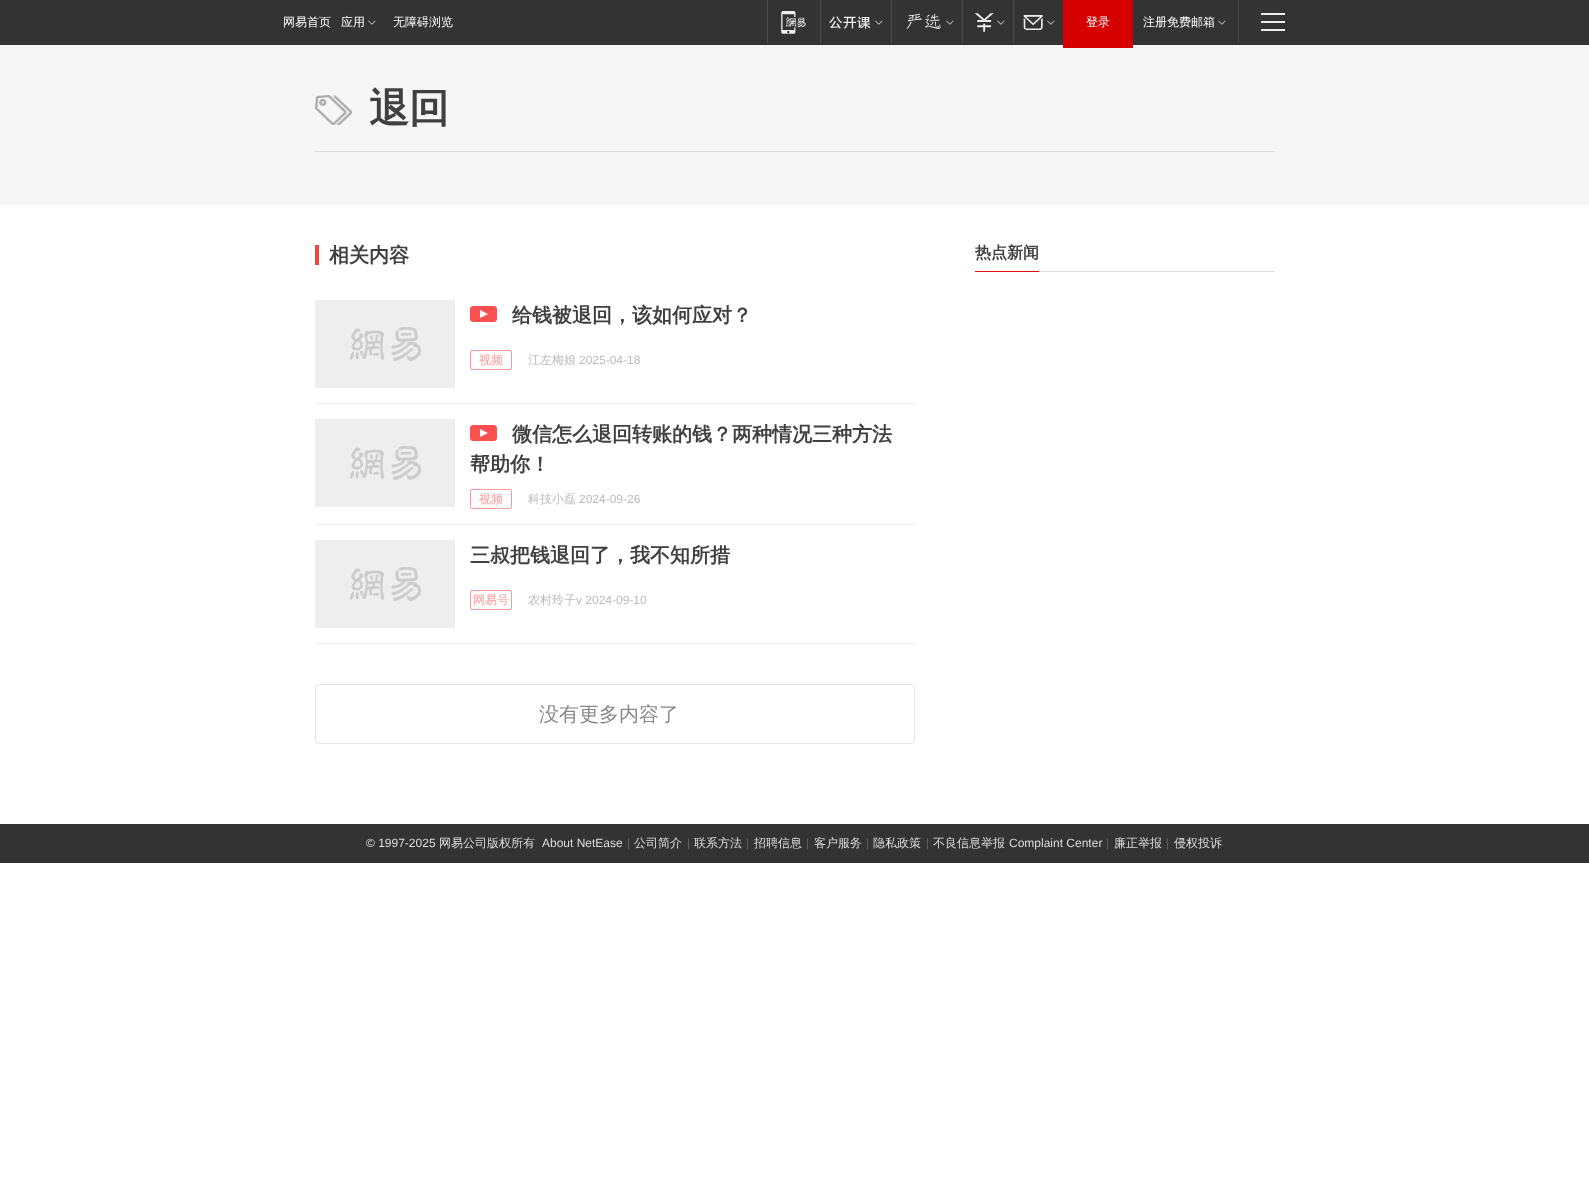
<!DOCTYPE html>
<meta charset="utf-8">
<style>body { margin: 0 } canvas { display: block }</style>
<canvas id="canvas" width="1589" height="1182"></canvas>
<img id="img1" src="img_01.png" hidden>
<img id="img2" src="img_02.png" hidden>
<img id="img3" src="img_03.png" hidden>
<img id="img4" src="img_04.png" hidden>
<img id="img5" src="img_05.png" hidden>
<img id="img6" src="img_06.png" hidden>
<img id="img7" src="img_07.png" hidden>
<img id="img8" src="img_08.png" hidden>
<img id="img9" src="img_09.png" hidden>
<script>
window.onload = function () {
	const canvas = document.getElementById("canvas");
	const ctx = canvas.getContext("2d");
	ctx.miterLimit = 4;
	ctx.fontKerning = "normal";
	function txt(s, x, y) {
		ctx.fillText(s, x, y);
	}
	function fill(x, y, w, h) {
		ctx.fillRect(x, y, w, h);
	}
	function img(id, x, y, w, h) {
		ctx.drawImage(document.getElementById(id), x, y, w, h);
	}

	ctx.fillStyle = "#FFFFFF";
	fill(0, 0, 1589, 1182);
	ctx.fillStyle = "#333333";
	fill(0, 0, 1589, 45);
	img("img1", 368, 20, 8, 5);
	ctx.fillStyle = "#4D4D4D";
	fill(767, 0, 1, 43);
	img("img2", 781, 11, 25, 23);
	fill(820, 0, 1, 43);
	img("img3", 829, 16, 42, 13);
	img("img1", 875, 20, 8, 5);
	fill(891, 0, 1, 43);
	img("img4", 906, 13, 35, 16);
	img("img1", 946, 20, 8, 5);
	fill(962, 0, 1, 43);
	img("img5", 974, 13, 20, 19);
	img("img1", 997, 20, 8, 5);
	fill(1013, 0, 1, 43);
	img("img6", 1023, 15, 20, 15);
	img("img1", 1047, 20, 8, 5);
	ctx.fillStyle = "#F6F6F6";
	fill(0, 45, 1589, 160);
	ctx.fillStyle = "#D60000";
	fill(1063, 0, 70, 48);
	img("img1", 1218, 20, 8, 5);
	ctx.fillStyle = "#444444";
	fill(1238, 0, 1, 43);
	ctx.fillStyle = "#EFEFEF";
	fill(1261, 13, 24, 2);
	fill(1261, 21, 24, 2);
	fill(1261, 29, 24, 2);
	img("img7", 315, 95, 37, 30);
	ctx.fillStyle = "#DDDDDD";
	fill(315, 151, 960, 1);
	ctx.fillStyle = "#F34540";
	fill(315, 245, 4, 20);
	ctx.fillStyle = "#F0F0F0";
	fill(315, 403, 600, 1);
	img("img8", 315, 300, 140, 88);
	img("img9", 470, 306, 27, 16);
	ctx.beginPath();
	ctx.roundRect(470.5, 350.5, 41, 19, 1.5);
	ctx.strokeStyle = "#FF9999";
	ctx.stroke();
	fill(315, 524, 600, 1);
	img("img8", 315, 419, 140, 88);
	img("img9", 470, 425, 27, 16);
	ctx.beginPath();
	ctx.roundRect(470.5, 489.5, 41, 19, 1.5);
	ctx.stroke();
	fill(315, 643, 600, 1);
	img("img8", 315, 540, 140, 88);
	ctx.beginPath();
	ctx.roundRect(470.5, 590.5, 41, 19, 1.5);
	ctx.stroke();
	ctx.beginPath();
	ctx.roundRect(315.5, 684.5, 599, 59, 3.5);
	ctx.strokeStyle = "#E5E5E5";
	ctx.stroke();
	ctx.fillStyle = "#DDDDDD";
	fill(1039, 271, 236, 1);
	ctx.fillStyle = "#DB1011";
	fill(975, 271, 64, 1);
	ctx.fillStyle = "#333333";
	fill(0, 824, 1589, 39);
	ctx.font = "500 12px WenQuanYi Zen Hei";
	ctx.fillStyle = "#FFFFFF";
	txt("网易首页", 283, 26);
	txt("应用", 341, 26);
	txt("无障碍浏览", 393, 26);
	txt("登录", 1086, 26);
	txt("注册免费邮箱", 1143, 26);
	ctx.font = "bold 40px WenQuanYi Zen Hei";
	ctx.fillStyle = "#404040";
	txt("退回", 369, 122);
	ctx.font = "bold 20px WenQuanYi Zen Hei";
	txt("相关内容", 329, 262);
	txt("给钱被退回，该如何应对？", 512, 322);
	ctx.font = "500 12px WenQuanYi Zen Hei";
	ctx.fillStyle = "#FF9999";
	txt("视频", 479, 364);
	ctx.fillStyle = "#BBBBBB";
	txt("江左梅娘", 528, 364);
	ctx.font = "12px Liberation Sans";
	txt("2025-04-18", 579, 364);
	ctx.font = "bold 20px WenQuanYi Zen Hei";
	ctx.fillStyle = "#404040";
	txt("微信怎么退回转账的钱？两种情况三种方法", 512, 441);
	txt("帮助你！", 470, 471);
	ctx.font = "500 12px WenQuanYi Zen Hei";
	ctx.fillStyle = "#FF9999";
	txt("视频", 479, 503);
	ctx.fillStyle = "#BBBBBB";
	txt("科技小磊", 528, 503);
	ctx.font = "12px Liberation Sans";
	txt("2024-09-26", 579, 503);
	ctx.font = "bold 20px WenQuanYi Zen Hei";
	ctx.fillStyle = "#404040";
	txt("三叔把钱退回了，我不知所措", 470, 562);
	ctx.font = "500 12px WenQuanYi Zen Hei";
	ctx.fillStyle = "#FF9999";
	txt("网易号", 473, 604);
	ctx.fillStyle = "#BBBBBB";
	txt("农村玲子", 528, 604);
	ctx.font = "12px Liberation Sans";
	txt("v 2024-09-10", 576, 604);
	ctx.font = "500 20px WenQuanYi Zen Hei";
	ctx.fillStyle = "#888888";
	txt("没有更多内容了", 539, 721);
	ctx.font = "bold 16px WenQuanYi Zen Hei";
	ctx.fillStyle = "#404040";
	txt("热点新闻", 975, 258);
	ctx.font = "12px Liberation Sans";
	ctx.fillStyle = "#DDDDDD";
	txt("© 1997-2025", 366, 847);
	ctx.font = "500 12px WenQuanYi Zen Hei";
	txt("网易公司版权所有", 439, 847);
	ctx.font = "12px Liberation Sans";
	txt("About NetEase", 542, 847);
	ctx.fillStyle = "#616161";
	txt("|", 627, 847);
	ctx.font = "500 12px WenQuanYi Zen Hei";
	ctx.fillStyle = "#DDDDDD";
	txt("公司简介", 634, 847);
	ctx.font = "12px Liberation Sans";
	ctx.fillStyle = "#616161";
	txt("|", 687, 847);
	ctx.font = "500 12px WenQuanYi Zen Hei";
	ctx.fillStyle = "#DDDDDD";
	txt("联系方法", 694, 847);
	ctx.font = "12px Liberation Sans";
	ctx.fillStyle = "#616161";
	txt("|", 746, 847);
	ctx.font = "500 12px WenQuanYi Zen Hei";
	ctx.fillStyle = "#DDDDDD";
	txt("招聘信息", 754, 847);
	ctx.font = "12px Liberation Sans";
	ctx.fillStyle = "#616161";
	txt("|", 806, 847);
	ctx.font = "500 12px WenQuanYi Zen Hei";
	ctx.fillStyle = "#DDDDDD";
	txt("客户服务", 814, 847);
	ctx.font = "12px Liberation Sans";
	ctx.fillStyle = "#616161";
	txt("|", 866, 847);
	ctx.font = "500 12px WenQuanYi Zen Hei";
	ctx.fillStyle = "#DDDDDD";
	txt("隐私政策", 873, 847);
	ctx.font = "12px Liberation Sans";
	ctx.fillStyle = "#616161";
	txt("|", 926, 847);
	ctx.font = "500 12px WenQuanYi Zen Hei";
	ctx.fillStyle = "#DDDDDD";
	txt("不良信息举报", 933, 847);
	ctx.font = "12px Liberation Sans";
	txt("Complaint Center", 1009, 847);
	ctx.fillStyle = "#616161";
	txt("|", 1106, 847);
	ctx.font = "500 12px WenQuanYi Zen Hei";
	ctx.fillStyle = "#DDDDDD";
	txt("廉正举报", 1114, 847);
	ctx.font = "12px Liberation Sans";
	ctx.fillStyle = "#616161";
	txt("|", 1166, 847);
	ctx.font = "500 12px WenQuanYi Zen Hei";
	ctx.fillStyle = "#DDDDDD";
	txt("侵权投诉", 1174, 847);
};
</script>
